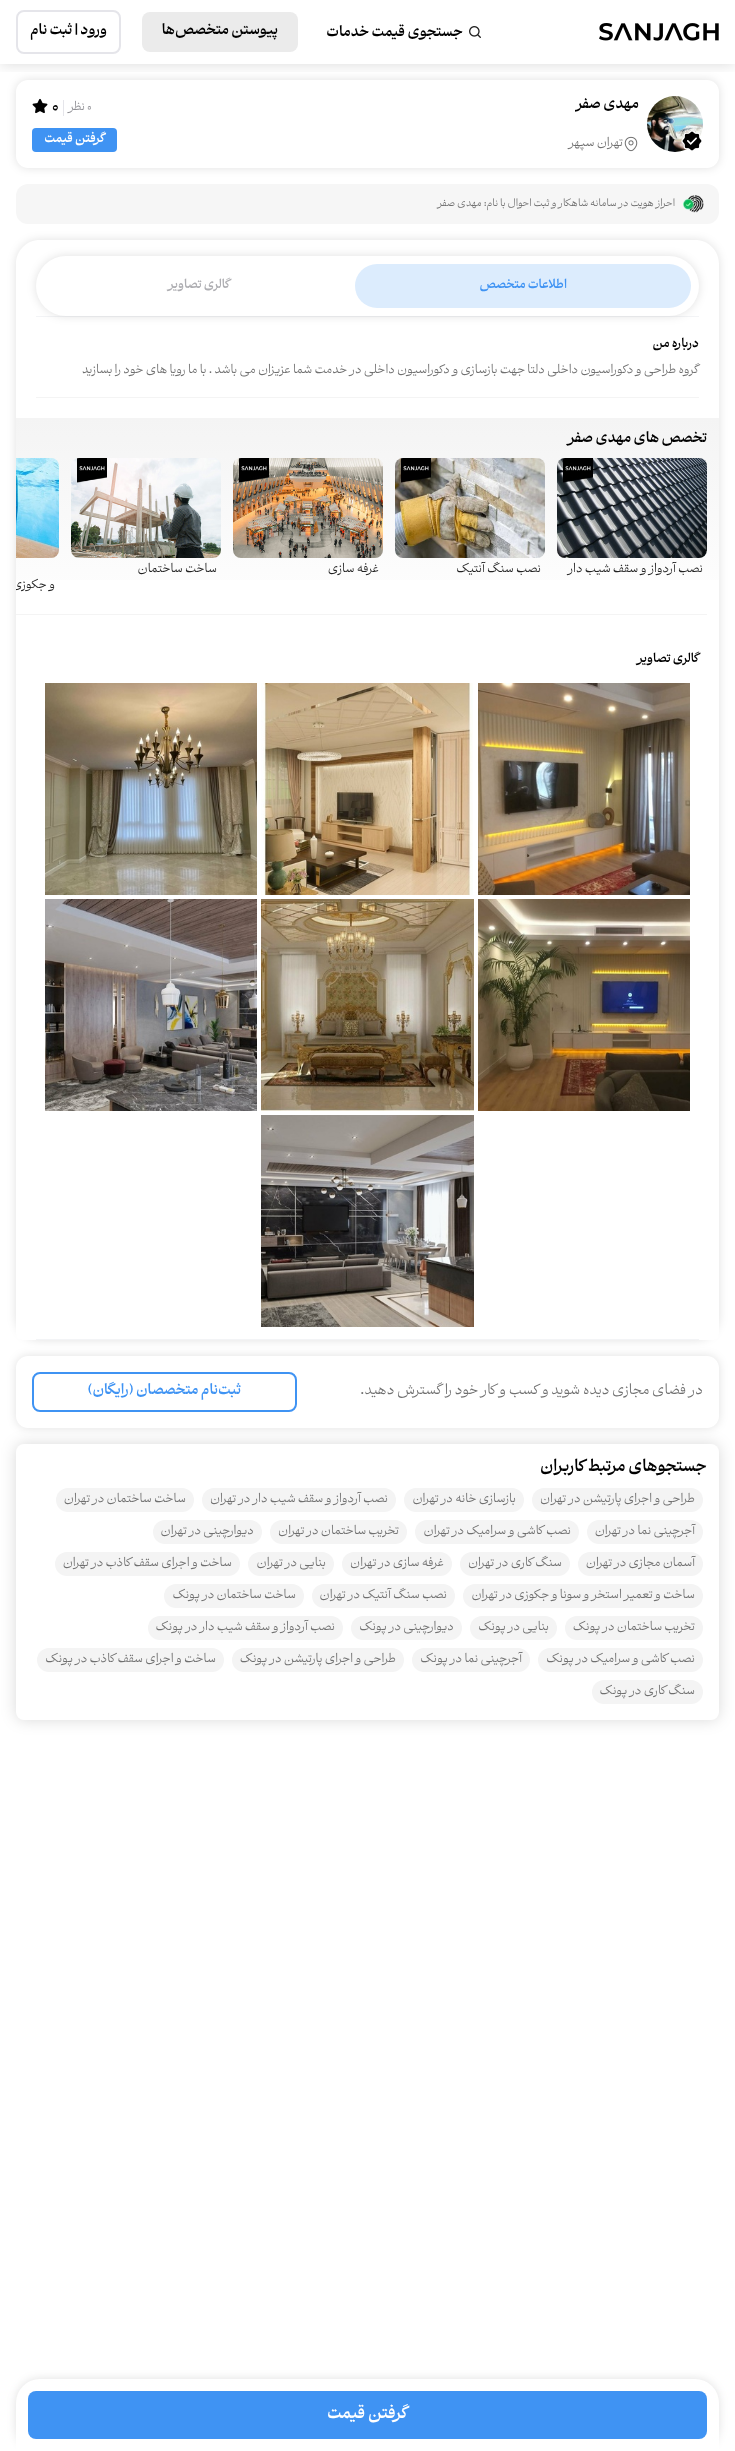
<!DOCTYPE html>
<meta charset="utf-8">
<style>body { margin: 0 } canvas { display: block }</style>
<canvas id="canvas" width="735" height="2451"></canvas>
<img id="img1" src="img_01.png" hidden>
<img id="img2" src="img_02.png" hidden>
<img id="img3" src="img_03.png" hidden>
<img id="img4" src="img_04.png" hidden>
<img id="img5" src="img_05.png" hidden>
<img id="img6" src="img_06.png" hidden>
<img id="img7" src="img_07.png" hidden>
<img id="img8" src="img_08.png" hidden>
<img id="img9" src="img_09.png" hidden>
<img id="img10" src="img_10.png" hidden>
<img id="img11" src="img_11.png" hidden>
<img id="img12" src="img_12.png" hidden>
<img id="img13" src="img_13.png" hidden>
<img id="img14" src="img_14.png" hidden>
<img id="img15" src="img_15.png" hidden>
<img id="img16" src="img_16.png" hidden>
<img id="img17" src="img_17.png" hidden>
<img id="img18" src="img_18.png" hidden>
<img id="img19" src="img_19.png" hidden>
<script>
window.onload = function () {
	const canvas = document.getElementById("canvas");
	const ctx = canvas.getContext("2d");
	ctx.miterLimit = 4;
	ctx.fontKerning = "normal";
	function txt(s, x, y) {
		ctx.fillText(s, x, y);
	}
	function fill(x, y, w, h) {
		ctx.fillRect(x, y, w, h);
	}
	function round(x, y, w, h, r) {
		ctx.beginPath();
		ctx.roundRect(x, y, w, h, r);
		ctx.fill();
	}
	function img(id, x, y, w, h) {
		ctx.drawImage(document.getElementById(id), x, y, w, h);
	}
	let gradient;

	ctx.fillStyle = "#FFFFFF";
	fill(0, 0, 735, 2451);
	ctx.save();
	ctx.beginPath();
	ctx.rect(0, 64, 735, 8);
	ctx.clip();
	ctx.fillStyle = "rgba(0, 0, 0, 0.15)";
	ctx.filter = "blur(7.5px)";
	ctx.beginPath();
	ctx.rect(0, 0, 735, 64);
	ctx.fill();
	ctx.filter = "none";
	ctx.restore();
	img("img1", 599, 23, 120, 18);
	img("img2", 469, 26, 12, 12);
	ctx.fillStyle = "#EBEBEB";
	round(142, 12, 156, 40, 8);
	ctx.beginPath();
	ctx.roundRect(17, 11, 103, 42, 7);
	ctx.strokeStyle = "#E5E5EA";
	ctx.lineWidth = 2;
	ctx.stroke();
	ctx.save();
	ctx.beginPath();
	ctx.moveTo(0, 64);
	ctx.lineTo(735, 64);
	ctx.lineTo(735, 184);
	ctx.lineTo(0, 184);
	ctx.closePath();
	ctx.moveTo(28, 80);
	ctx.lineTo(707, 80);
	ctx.bezierCurveTo(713.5, 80, 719, 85.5, 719, 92);
	ctx.lineTo(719, 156);
	ctx.bezierCurveTo(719, 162.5, 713.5, 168, 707, 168);
	ctx.lineTo(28, 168);
	ctx.bezierCurveTo(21.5, 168, 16, 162.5, 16, 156);
	ctx.lineTo(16, 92);
	ctx.bezierCurveTo(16, 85.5, 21.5, 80, 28, 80);
	ctx.closePath();
	ctx.clip("evenodd");
	ctx.fillStyle = "rgba(0, 0, 0, 0.12)";
	ctx.filter = "blur(5px)";
	ctx.beginPath();
	ctx.roundRect(16, 80, 703, 88, 12);
	ctx.fill();
	ctx.filter = "none";
	ctx.restore();
	img("img3", 647, 96, 56, 56);
	img("img4", 681, 130, 21, 21);
	img("img5", 624, 136, 14, 16);
	ctx.fillStyle = "#E5E5EA";
	fill(63, 100, 1, 16);
	img("img6", 32, 98, 16, 16);
	ctx.fillStyle = "#3F93F3";
	round(32, 128, 85, 24, 4);
	ctx.fillStyle = "#F6F6F6";
	round(16, 184, 703, 40, 12);
	img("img7", 683, 195, 21, 18);
	ctx.save();
	ctx.beginPath();
	ctx.moveTo(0, 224);
	ctx.lineTo(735, 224);
	ctx.lineTo(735, 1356);
	ctx.lineTo(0, 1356);
	ctx.closePath();
	ctx.moveTo(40, 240);
	ctx.lineTo(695, 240);
	ctx.bezierCurveTo(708.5, 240, 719, 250.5, 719, 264);
	ctx.lineTo(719, 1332);
	ctx.bezierCurveTo(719, 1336.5, 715.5, 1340, 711, 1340);
	ctx.lineTo(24, 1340);
	ctx.bezierCurveTo(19.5, 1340, 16, 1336.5, 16, 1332);
	ctx.lineTo(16, 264);
	ctx.bezierCurveTo(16, 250.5, 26.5, 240, 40, 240);
	ctx.closePath();
	ctx.clip("evenodd");
	ctx.fillStyle = "rgba(0, 0, 0, 0.12)";
	ctx.filter = "blur(5px)";
	ctx.beginPath();
	ctx.roundRect(16, 240, 703, 1100, 24);
	ctx.fill();
	ctx.filter = "none";
	ctx.restore();
	ctx.fillStyle = "#F3F4F6";
	fill(36, 316, 663, 1);
	ctx.fillStyle = "rgba(0, 0, 0, 0.12)";
	ctx.filter = "blur(5px)";
	ctx.beginPath();
	ctx.roundRect(36, 256, 663, 60, 30);
	ctx.fill();
	ctx.filter = "none";
	ctx.fillStyle = "#FFFFFF";
	round(36, 256, 663, 60, 30);
	ctx.fillStyle = "#DCECFD";
	round(355, 264, 336, 44, 22);
	ctx.fillStyle = "#F3F4F6";
	fill(36, 1339, 663, 1);
	ctx.fillStyle = "#F4F4F4";
	fill(36, 397, 663, 1);
	gradient = ctx.createLinearGradient(368, 418, 368, 627);
	gradient.addColorStop(0, "#F4F4F4");
	gradient.addColorStop(1, "#FFFFFF");
	ctx.fillStyle = gradient;
	fill(16, 418, 703, 162);
	img("img8", 557, 458, 150, 100);
	img("img9", 395, 458, 150, 100);
	img("img10", 233, 458, 150, 100);
	img("img11", 71, 458, 150, 100);
	img("img12", 16, 458, 43, 100);
	ctx.fillStyle = "#F4F4F4";
	fill(16, 614, 691, 1);
	img("img13", 478, 683, 212, 212);
	img("img14", 261, 683, 212, 212);
	img("img15", 45, 683, 212, 212);
	img("img16", 478, 899, 212, 212);
	img("img17", 261, 899, 213, 212);
	img("img18", 45, 899, 212, 212);
	img("img19", 261, 1115, 213, 212);
	ctx.save();
	ctx.beginPath();
	ctx.moveTo(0, 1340);
	ctx.lineTo(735, 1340);
	ctx.lineTo(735, 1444);
	ctx.lineTo(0, 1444);
	ctx.closePath();
	ctx.moveTo(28, 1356);
	ctx.lineTo(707, 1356);
	ctx.bezierCurveTo(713.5, 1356, 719, 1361.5, 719, 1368);
	ctx.lineTo(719, 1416);
	ctx.bezierCurveTo(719, 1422.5, 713.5, 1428, 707, 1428);
	ctx.lineTo(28, 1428);
	ctx.bezierCurveTo(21.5, 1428, 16, 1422.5, 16, 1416);
	ctx.lineTo(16, 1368);
	ctx.bezierCurveTo(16, 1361.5, 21.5, 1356, 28, 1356);
	ctx.closePath();
	ctx.clip("evenodd");
	ctx.fillStyle = "rgba(0, 0, 0, 0.12)";
	ctx.filter = "blur(5px)";
	ctx.beginPath();
	ctx.roundRect(16, 1356, 703, 72, 12);
	ctx.fill();
	ctx.filter = "none";
	ctx.restore();
	ctx.beginPath();
	ctx.roundRect(33, 1373, 263, 38, 7);
	ctx.strokeStyle = "#3F93F3";
	ctx.stroke();
	ctx.fillStyle = "rgba(0, 0, 0, 0.15)";
	ctx.filter = "blur(7.5px)";
	ctx.beginPath();
	ctx.roundRect(16, 1444, 703, 276, 8);
	ctx.fill();
	ctx.filter = "none";
	ctx.fillStyle = "#FFFFFF";
	round(16, 1444, 703, 276, 8);
	ctx.fillStyle = "#F4F4F4";
	round(532, 1488, 171, 24, 12);
	round(404, 1488, 120, 24, 12);
	round(202, 1488, 194, 24, 12);
	round(56, 1488, 138, 24, 12);
	round(587, 1520, 116, 24, 12);
	round(415, 1520, 164, 24, 12);
	round(270, 1520, 137, 24, 12);
	round(153, 1520, 109, 24, 12);
	round(578, 1552, 125, 24, 12);
	round(460, 1552, 110, 24, 12);
	round(342, 1552, 110, 24, 12);
	round(248, 1552, 86, 24, 12);
	round(55, 1552, 185, 24, 12);
	round(463, 1584, 240, 24, 12);
	round(312, 1584, 143, 24, 12);
	round(164, 1584, 140, 24, 12);
	round(565, 1616, 138, 24, 12);
	round(470, 1616, 87, 24, 12);
	round(351, 1616, 111, 24, 12);
	round(148, 1616, 195, 24, 12);
	round(538, 1648, 165, 24, 12);
	round(412, 1648, 118, 24, 12);
	round(232, 1648, 172, 24, 12);
	round(37, 1648, 187, 24, 12);
	round(592, 1680, 111, 24, 12);
	ctx.fillStyle = "rgba(0, 0, 0, 0.12)";
	ctx.filter = "blur(5px)";
	ctx.beginPath();
	ctx.roundRect(16, 2379, 703, 72, 24);
	ctx.fill();
	ctx.filter = "none";
	ctx.fillStyle = "#FFFFFF";
	ctx.beginPath();
	ctx.roundRect(16, 2379, 703, 72, [24, 24, 0, 0]);
	ctx.fill();
	ctx.fillStyle = "#3F93F3";
	round(28, 2391, 679, 48, 8);
	ctx.direction = "rtl";
	ctx.font = "bold 14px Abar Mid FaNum";
	ctx.fillStyle = "#000000";
	txt("جستجوی قیمت خدمات", 463, 36);
	txt("پیوستن متخصص‌ها", 278, 34);
	txt("ورود | ثبت نام", 107, 34);
	ctx.save();
	ctx.beginPath();
	ctx.rect(575, 96, 64, 20);
	ctx.clip();
	txt("مهدی صفر", 639, 108);
	ctx.restore();
	ctx.font = "12px Abar Mid FaNum";
	ctx.fillStyle = "#707070";
	txt("تهران سپهر", 623, 146);
	ctx.direction = "ltr";
	ctx.fillStyle = "#8E8E93";
	txt("0", 87, 110);
	ctx.direction = "rtl";
	txt("نظر", 85, 110);
	ctx.direction = "ltr";
	ctx.font = "bold 16px Abar Mid FaNum";
	ctx.fillStyle = "#000000";
	txt("0", 52, 111);
	ctx.direction = "rtl";
	ctx.font = "bold 12px Abar Mid FaNum";
	ctx.fillStyle = "#FFFFFF";
	txt("گرفتن قیمت", 105, 142);
	ctx.font = "10px Abar Mid FaNum";
	ctx.fillStyle = "#707070";
	txt("احراز هویت در سامانه شاهکار و ثبت احوال با نام: مهدی صفر", 675, 206);
	ctx.font = "bold 12px Abar Mid FaNum";
	ctx.fillStyle = "#3F93F3";
	txt("اطلاعات متخصص", 567, 288);
	ctx.fillStyle = "#AEAEB2";
	txt("گالری تصاویر", 230, 288);
	ctx.fillStyle = "#000000";
	txt("درباره من", 699, 347);
	ctx.font = "12px Abar Mid FaNum";
	ctx.fillStyle = "#707070";
	txt("گروه طراحی و دکوراسیون داخلی دلتا جهت بازسازی و‌ دکوراسیون داخلی در خدمت شما عزیزان می باشد . با ما رویا های خود را بسازید", 699, 373);
	ctx.font = "bold 14px Abar Mid FaNum";
	ctx.fillStyle = "#000000";
	txt("تخصص های مهدی صفر", 707, 442);
	ctx.font = "12px Abar Mid FaNum";
	ctx.fillStyle = "#212121";
	txt("نصب آردواز و سقف شیب دار", 703, 572);
	txt("نصب سنگ آنتیک", 541, 572);
	txt("غرفه سازی", 379, 572);
	txt("ساخت ساختمان", 217, 572);
	ctx.save();
	ctx.beginPath();
	ctx.rect(16, 458, 691, 140);
	ctx.clip();
	txt("و جکوزی", 55, 588);
	ctx.restore();
	ctx.font = "bold 12px Abar Mid FaNum";
	ctx.fillStyle = "#000000";
	txt("گالری تصاویر", 699, 662);
	ctx.font = "14px Abar Mid FaNum";
	ctx.fillStyle = "#707070";
	txt("در فضای مجازی دیده شوید و کسب و کار خود را گسترش دهید.", 703, 1394);
	ctx.font = "bold 14px Abar Mid FaNum";
	ctx.fillStyle = "#3F93F3";
	txt("ثبت‌نام متخصصان (رایگان)", 241, 1394);
	ctx.font = "bold 16px Abar Mid FaNum";
	ctx.fillStyle = "#000000";
	txt("جستجو‌های مرتبط کاربران", 707, 1471);
	ctx.font = "12px Abar Mid FaNum";
	ctx.fillStyle = "#707070";
	txt("طراحی و اجرای پارتیشن در تهران", 695, 1502);
	txt("بازسازی خانه در تهران", 516, 1502);
	txt("نصب آردواز و سقف شیب دار در تهران", 388, 1502);
	txt("ساخت ساختمان در تهران", 186, 1502);
	txt("آجرچینی نما در تهران", 695, 1534);
	txt("نصب کاشی و سرامیک در تهران", 571, 1534);
	txt("تخریب ساختمان در تهران", 399, 1534);
	txt("دیوارچینی در تهران", 254, 1534);
	txt("آسمان مجازی در تهران", 695, 1566);
	txt("سنگ کاری در تهران", 562, 1566);
	txt("غرفه سازی در تهران", 444, 1566);
	txt("بنایی در تهران", 326, 1566);
	txt("ساخت و اجرای سقف کاذب در تهران", 232, 1566);
	txt("ساخت و تعمیر استخر و سونا و جکوزی در تهران", 695, 1598);
	txt("نصب سنگ آنتیک در تهران", 447, 1598);
	txt("ساخت ساختمان در پونک", 296, 1598);
	txt("تخریب ساختمان در پونک", 695, 1630);
	txt("بنایی در پونک", 549, 1630);
	txt("دیوارچینی در پونک", 454, 1630);
	txt("نصب آردواز و سقف شیب دار در پونک", 335, 1630);
	txt("نصب کاشی و سرامیک در پونک", 695, 1662);
	txt("آجرچینی نما در پونک", 522, 1662);
	txt("طراحی و اجرای پارتیشن در پونک", 396, 1662);
	txt("ساخت و اجرای سقف کاذب در پونک", 216, 1662);
	txt("سنگ کاری در پونک", 695, 1694);
	ctx.font = "bold 16px Abar Mid FaNum";
	ctx.fillStyle = "#FFFFFF";
	txt("گرفتن قیمت", 408, 2418);
};
</script>
